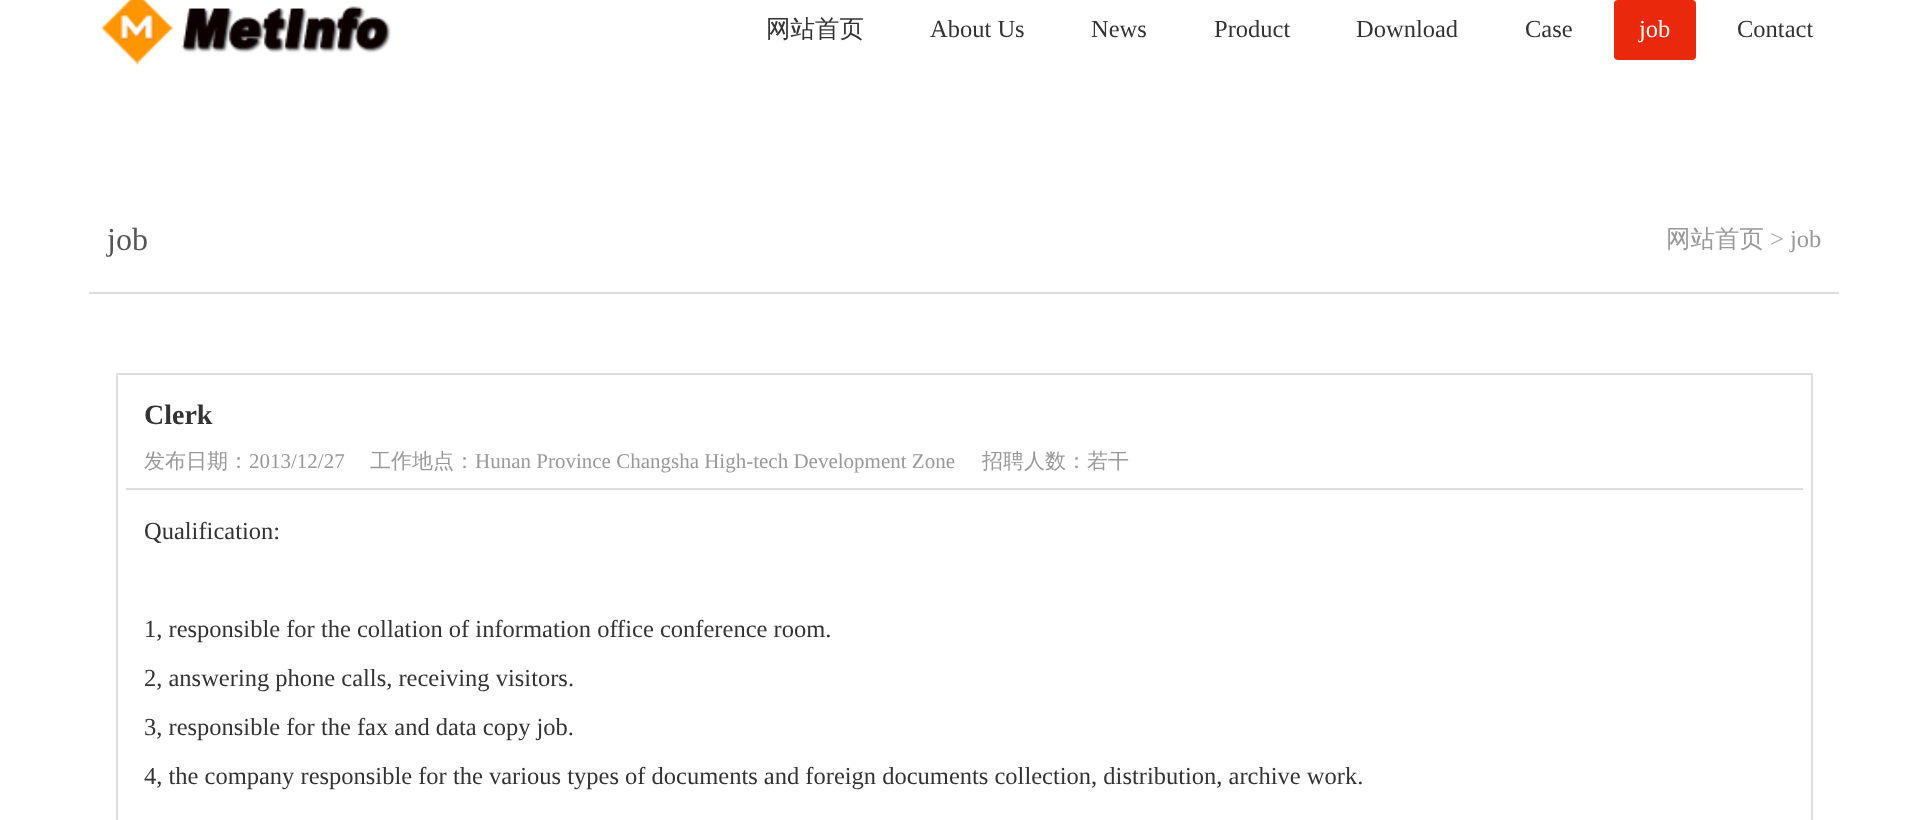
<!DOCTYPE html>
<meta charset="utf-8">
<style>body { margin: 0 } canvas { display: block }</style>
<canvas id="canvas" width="1927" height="820"></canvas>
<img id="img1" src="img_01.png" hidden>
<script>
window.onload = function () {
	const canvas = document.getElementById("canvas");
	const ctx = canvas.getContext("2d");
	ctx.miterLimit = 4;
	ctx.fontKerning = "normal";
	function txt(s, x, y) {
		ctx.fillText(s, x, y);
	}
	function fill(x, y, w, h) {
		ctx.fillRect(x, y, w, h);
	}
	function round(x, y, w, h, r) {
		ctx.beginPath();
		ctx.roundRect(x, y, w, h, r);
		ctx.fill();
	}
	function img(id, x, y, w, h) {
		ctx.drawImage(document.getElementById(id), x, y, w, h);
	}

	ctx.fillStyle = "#FFFFFF";
	fill(0, 0, 1927, 820);
	img("img1", 101, 0, 290, 65);
	ctx.fillStyle = "#E9280C";
	round(1614, 0, 82, 60, 4);
	ctx.fillStyle = "#DDDDDD";
	fill(89, 292, 1750, 2);
	ctx.strokeStyle = "#DDDDDD";
	ctx.lineWidth = 2;
	ctx.strokeRect(117, 374, 1695, 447);
	fill(126, 488, 1677, 2);
	ctx.font = "500 24.5px WenQuanYi Zen Hei";
	ctx.fillStyle = "#333333";
	txt("网站首页", 766, 37);
	ctx.font = "24.5px Liberation Serif";
	txt("About Us", 930, 37);
	txt("News", 1091, 37);
	txt("Product", 1214, 37);
	txt("Download", 1356, 37);
	txt("Case", 1525, 37);
	ctx.fillStyle = "#FFFFFF";
	txt("job", 1639, 37);
	ctx.fillStyle = "#333333";
	txt("Contact", 1737, 37);
	ctx.font = "32px Liberation Serif";
	ctx.fillStyle = "#555555";
	txt("job", 107, 250);
	ctx.font = "500 24.5px WenQuanYi Zen Hei";
	ctx.fillStyle = "#999999";
	txt("网站首页", 1666, 247);
	ctx.font = "24.5px Liberation Serif";
	ctx.fillStyle = "#AAAAAA";
	txt(">", 1770, 247);
	ctx.fillStyle = "#999999";
	txt("job", 1790, 247);
	ctx.font = "bold 28px Liberation Serif";
	ctx.fillStyle = "#333333";
	txt("Clerk", 144, 424);
	ctx.font = "500 21px WenQuanYi Zen Hei";
	ctx.fillStyle = "#999999";
	txt("发布日期：", 144, 468);
	ctx.font = "21px Liberation Serif";
	txt("2013/12/27", 249, 468);
	ctx.font = "500 21px WenQuanYi Zen Hei";
	txt("工作地点：", 370, 468);
	ctx.font = "21px Liberation Serif";
	txt("Hunan Province Changsha High-tech Development Zone", 475, 468);
	ctx.font = "500 21px WenQuanYi Zen Hei";
	txt("招聘人数：若干", 982, 468);
	ctx.font = "24.5px Liberation Serif";
	ctx.fillStyle = "#333333";
	txt("Qualification:", 144, 539);
	txt("1, responsible for the collation of information office conference room.", 144, 637);
	txt("2, answering phone calls, receiving visitors.", 144, 686);
	txt("3, responsible for the fax and data copy job.", 144, 735);
	txt("4, the company responsible for the various types of documents and foreign documents collection, distribution, archive work.", 144, 784);
};
</script>
